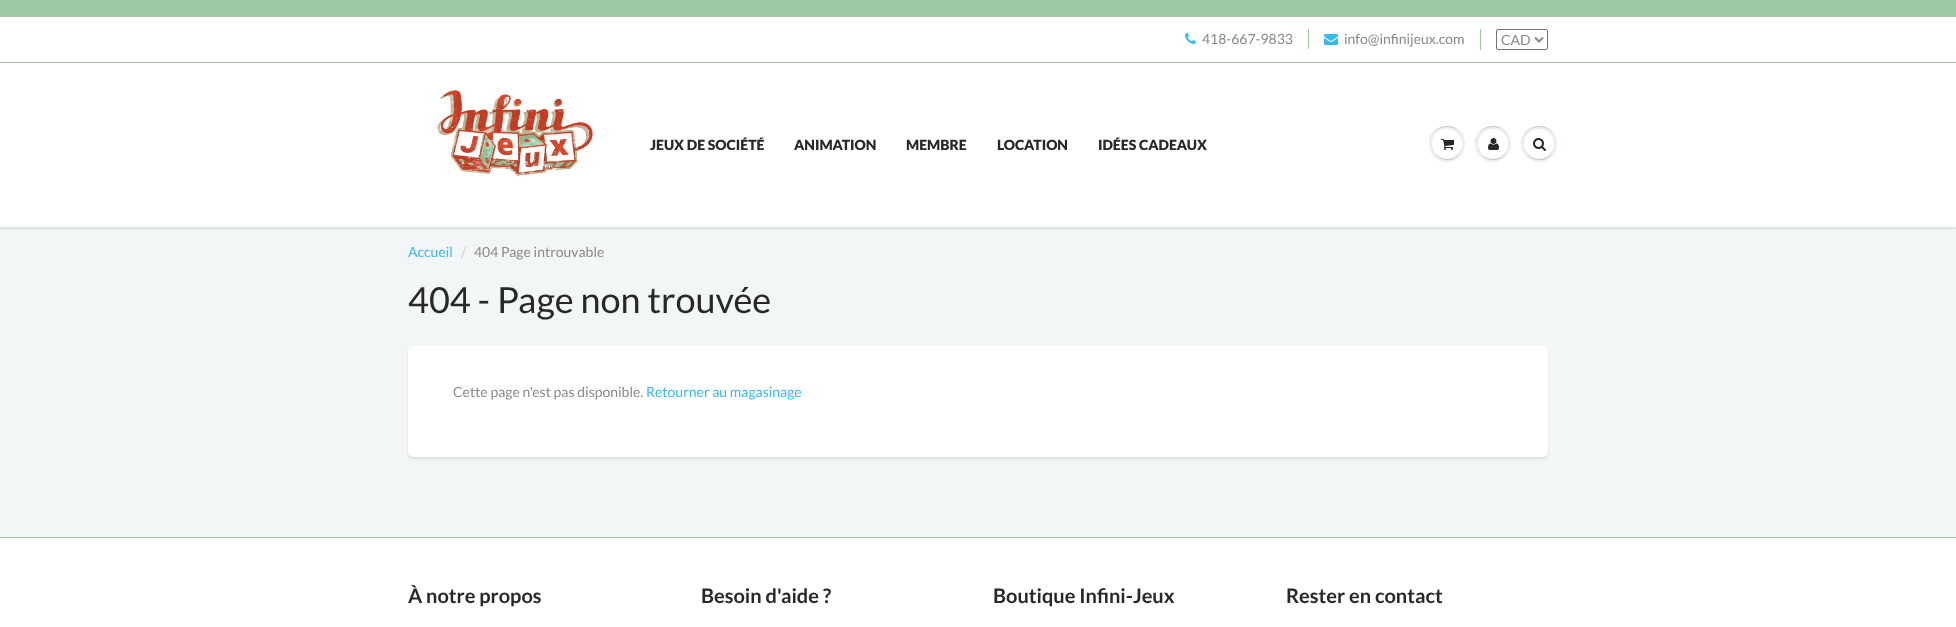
<!DOCTYPE html>
<meta charset="utf-8">
<style>body { margin: 0 } canvas { display: block }</style>
<canvas id="canvas" width="1956" height="627"></canvas>
<img id="img1" src="img_01.png" hidden>
<img id="img2" src="img_02.png" hidden>
<img id="img3" src="img_03.png" hidden>
<img id="img4" src="img_04.png" hidden>
<img id="img5" src="img_05.png" hidden>
<img id="img6" src="img_06.png" hidden>
<script>
window.onload = function () {
	const canvas = document.getElementById("canvas");
	const ctx = canvas.getContext("2d");
	ctx.miterLimit = 4;
	ctx.fontKerning = "normal";
	function txt(s, x, y) {
		ctx.fillText(s, x, y);
	}
	function fill(x, y, w, h) {
		ctx.fillRect(x, y, w, h);
	}
	function round(x, y, w, h, r) {
		ctx.beginPath();
		ctx.roundRect(x, y, w, h, r);
		ctx.fill();
	}
	function img(id, x, y, w, h) {
		ctx.drawImage(document.getElementById(id), x, y, w, h);
	}

	ctx.fillStyle = "#FFFFFF";
	fill(0, 0, 1956, 627);
	ctx.fillStyle = "#9DC9A5";
	fill(0, 0, 1956, 17);
	img("img1", 1185, 33, 11, 11);
	fill(1308, 29, 1, 20);
	img("img2", 1324, 34, 14, 11);
	fill(1480, 29, 1, 21);
	ctx.beginPath();
	ctx.roundRect(1496.5, 29.5, 51, 20, 1.5);
	ctx.strokeStyle = "#767676";
	ctx.stroke();
	ctx.beginPath();
	ctx.moveTo(1535, 37.5);
	ctx.lineTo(1539, 41.5);
	ctx.lineTo(1543, 37.5);
	ctx.strokeStyle = "#898989";
	ctx.lineWidth = 2;
	ctx.stroke();
	ctx.fillStyle = "#F3F6F6";
	fill(0, 227, 1956, 310);
	ctx.save();
	ctx.beginPath();
	ctx.rect(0, 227, 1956, 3);
	ctx.clip();
	ctx.fillStyle = "rgba(11, 25, 28, 0.12)";
	ctx.filter = "blur(1px)";
	ctx.beginPath();
	ctx.rect(0, 64, 1956, 165);
	ctx.fill();
	ctx.filter = "none";
	ctx.restore();
	ctx.fillStyle = "#9DC9A5";
	fill(0, 62, 1956, 1);
	img("img3", 435, 89, 160, 89);
	ctx.fillStyle = "#EDEFEF";
	ctx.beginPath();
	ctx.arc(1447, 144, 18, 0, Math.PI * 2);
	ctx.fill();
	ctx.fillStyle = "#C9CBCB";
	ctx.beginPath();
	ctx.moveTo(1447, 127);
	ctx.bezierCurveTo(1459, 127, 1465, 135.5, 1465, 144.5);
	ctx.bezierCurveTo(1465, 141, 1464, 137, 1462, 134);
	ctx.bezierCurveTo(1452, 119, 1428.5, 126.5, 1429, 144.5);
	ctx.bezierCurveTo(1429, 135.5, 1435, 127, 1447, 127);
	ctx.closePath();
	ctx.fill();
	ctx.beginPath();
	ctx.moveTo(1462, 144.5);
	ctx.bezierCurveTo(1461.5, 163.5, 1432.5, 163.5, 1432, 144.5);
	ctx.bezierCurveTo(1431.5, 159.5, 1451, 166, 1459.5, 153.5);
	ctx.bezierCurveTo(1461, 151, 1462, 147.5, 1462, 144.5);
	ctx.closePath();
	ctx.fill();
	ctx.fillStyle = "#FFFFFF";
	ctx.beginPath();
	ctx.arc(1447, 144, 15, 0, Math.PI * 2);
	ctx.fill();
	ctx.beginPath();
	ctx.moveTo(1447, 130);
	ctx.bezierCurveTo(1457, 130, 1462, 137, 1462, 144.5);
	ctx.bezierCurveTo(1462, 141.5, 1461, 138, 1459.5, 135.5);
	ctx.bezierCurveTo(1451, 123, 1431.5, 129.5, 1432, 144.5);
	ctx.bezierCurveTo(1432, 137, 1437, 130, 1447, 130);
	ctx.closePath();
	ctx.fill();
	img("img4", 1441, 139, 13, 11);
	ctx.fillStyle = "#EDEFEF";
	ctx.beginPath();
	ctx.arc(1493, 144, 18, 0, Math.PI * 2);
	ctx.fill();
	ctx.fillStyle = "#C9CBCB";
	ctx.beginPath();
	ctx.moveTo(1493, 127);
	ctx.bezierCurveTo(1505, 127, 1511, 135.5, 1511, 144.5);
	ctx.bezierCurveTo(1511, 141, 1510, 137, 1508, 134);
	ctx.bezierCurveTo(1498, 119, 1474.5, 126.5, 1475, 144.5);
	ctx.bezierCurveTo(1475, 135.5, 1481, 127, 1493, 127);
	ctx.closePath();
	ctx.fill();
	ctx.beginPath();
	ctx.moveTo(1508, 144.5);
	ctx.bezierCurveTo(1507.5, 163.5, 1478.5, 163.5, 1478, 144.5);
	ctx.bezierCurveTo(1477.5, 159.5, 1497, 166, 1505.5, 153.5);
	ctx.bezierCurveTo(1507, 151, 1508, 147.5, 1508, 144.5);
	ctx.closePath();
	ctx.fill();
	ctx.fillStyle = "#FFFFFF";
	ctx.beginPath();
	ctx.arc(1493, 144, 15, 0, Math.PI * 2);
	ctx.fill();
	ctx.beginPath();
	ctx.moveTo(1493, 130);
	ctx.bezierCurveTo(1503, 130, 1508, 137, 1508, 144.5);
	ctx.bezierCurveTo(1508, 141.5, 1507, 138, 1505.5, 135.5);
	ctx.bezierCurveTo(1497, 123, 1477.5, 129.5, 1478, 144.5);
	ctx.bezierCurveTo(1478, 137, 1483, 130, 1493, 130);
	ctx.closePath();
	ctx.fill();
	img("img5", 1488, 138, 11, 12);
	ctx.fillStyle = "#EDEFEF";
	ctx.beginPath();
	ctx.arc(1539, 144, 18, 0, Math.PI * 2);
	ctx.fill();
	ctx.fillStyle = "#C9CBCB";
	ctx.beginPath();
	ctx.moveTo(1539, 127);
	ctx.bezierCurveTo(1551, 127, 1557, 135.5, 1557, 144.5);
	ctx.bezierCurveTo(1557, 141, 1556, 137, 1554, 134);
	ctx.bezierCurveTo(1544, 119, 1520.5, 126.5, 1521, 144.5);
	ctx.bezierCurveTo(1521, 135.5, 1527, 127, 1539, 127);
	ctx.closePath();
	ctx.fill();
	ctx.beginPath();
	ctx.moveTo(1554, 144.5);
	ctx.bezierCurveTo(1553.5, 163.5, 1524.5, 163.5, 1524, 144.5);
	ctx.bezierCurveTo(1523.5, 159.5, 1543, 166, 1551.5, 153.5);
	ctx.bezierCurveTo(1553, 151, 1554, 147.5, 1554, 144.5);
	ctx.closePath();
	ctx.fill();
	ctx.fillStyle = "#FFFFFF";
	ctx.beginPath();
	ctx.arc(1539, 144, 15, 0, Math.PI * 2);
	ctx.fill();
	ctx.beginPath();
	ctx.moveTo(1539, 130);
	ctx.bezierCurveTo(1549, 130, 1554, 137, 1554, 144.5);
	ctx.bezierCurveTo(1554, 141.5, 1553, 138, 1551.5, 135.5);
	ctx.bezierCurveTo(1543, 123, 1523.5, 129.5, 1524, 144.5);
	ctx.bezierCurveTo(1524, 137, 1529, 130, 1539, 130);
	ctx.closePath();
	ctx.fill();
	img("img6", 1533, 138, 13, 13);
	ctx.fillStyle = "rgba(11, 25, 28, 0.1)";
	ctx.filter = "blur(1px)";
	ctx.beginPath();
	ctx.roundRect(408, 348, 1140, 111, 5);
	ctx.fill();
	ctx.filter = "none";
	ctx.fillStyle = "#FFFFFF";
	round(408, 346, 1140, 111, 5);
	ctx.fillStyle = "#9DC9A5";
	fill(0, 537, 1956, 1);
	ctx.font = "14px Lato";
	ctx.fillStyle = "#898989";
	txt("418-667-9833", 1202, 44);
	txt("info@infinijeux.com", 1344, 44);
	txt("CAD", 1501, 45);
	ctx.font = "900 14px Lato";
	ctx.fillStyle = "#282827";
	txt("JEUX DE SOCIÉTÉ", 650, 150);
	txt("ANIMATION", 794, 150);
	txt("MEMBRE", 906, 150);
	txt("LOCATION", 997, 150);
	txt("IDÉES CADEAUX", 1098, 150);
	ctx.font = "14px Lato";
	ctx.fillStyle = "#37BBEC";
	txt("Accueil", 408, 257);
	ctx.fillStyle = "#CCCCCC";
	txt("/", 461, 257);
	ctx.fillStyle = "#898989";
	txt("404 Page introuvable", 474, 257);
	ctx.font = "36px Lato";
	ctx.fillStyle = "#282827";
	txt("404 - Page non trouvée", 408, 313);
	ctx.font = "14px Lato";
	ctx.fillStyle = "#898989";
	txt("Cette page n'est pas disponible.", 453, 397);
	ctx.fillStyle = "#37BBEC";
	txt("Retourner au magasinage", 646, 397);
	ctx.font = "bold 20px Lato";
	ctx.fillStyle = "#282827";
	txt("À notre propos", 408, 603);
	txt("Besoin d'aide ?", 701, 603);
	txt("Boutique Infini-Jeux", 993, 603);
	txt("Rester en contact", 1286, 603);
};
</script>
